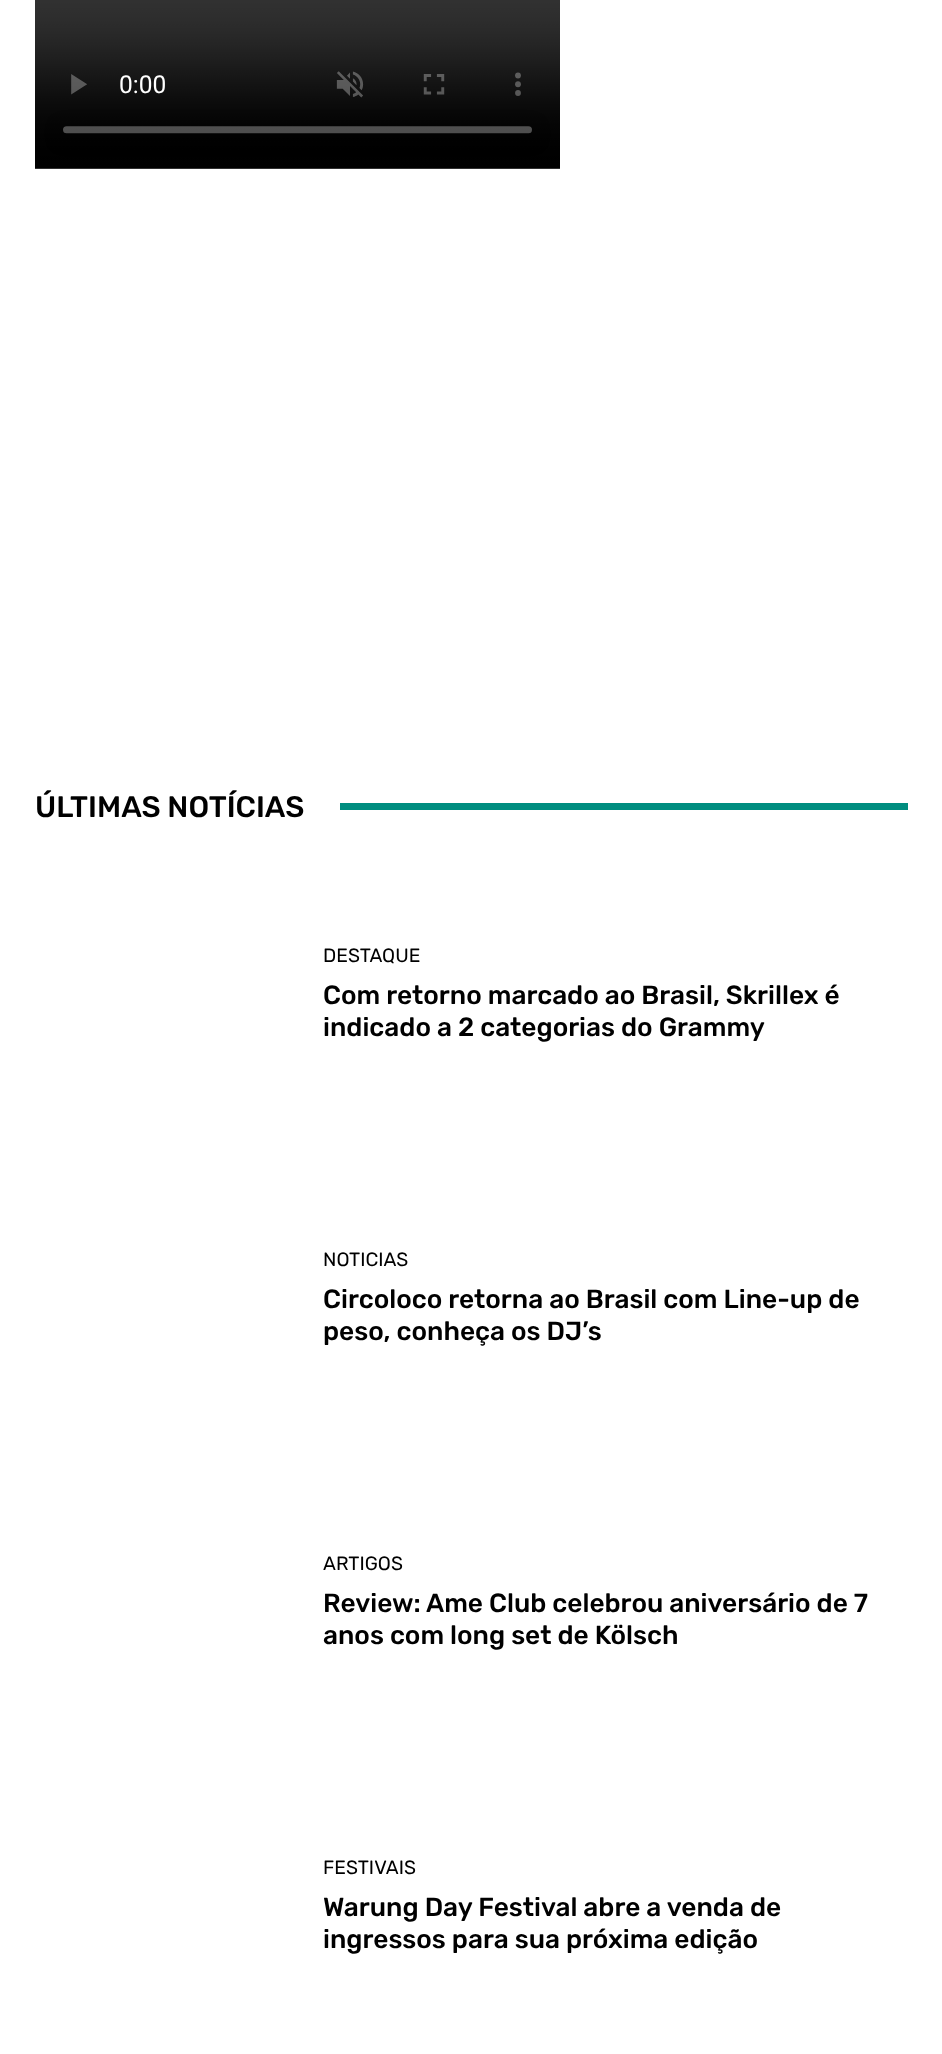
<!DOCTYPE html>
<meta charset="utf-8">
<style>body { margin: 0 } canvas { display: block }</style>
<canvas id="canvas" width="942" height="2054"></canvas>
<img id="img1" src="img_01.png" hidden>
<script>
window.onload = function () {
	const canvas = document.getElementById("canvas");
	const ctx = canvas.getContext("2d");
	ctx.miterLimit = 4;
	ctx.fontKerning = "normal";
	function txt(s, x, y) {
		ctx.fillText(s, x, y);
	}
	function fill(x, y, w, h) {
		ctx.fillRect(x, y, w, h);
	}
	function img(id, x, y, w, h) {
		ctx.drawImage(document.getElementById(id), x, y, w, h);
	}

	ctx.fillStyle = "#FFFFFF";
	fill(0, 0, 942, 2054);
	img("img1", 35, 0, 525, 169);
	ctx.fillStyle = "#008D7F";
	fill(340, 803, 568, 7);
	ctx.font = "500 29.75px Rubik";
	ctx.fillStyle = "#000000";
	txt("ÚLTIMAS NOTÍCIAS", 35, 817);
	ctx.font = "19.25px Rubik";
	txt("DESTAQUE", 323, 962);
	ctx.font = "500 26.25px Rubik";
	txt("Com retorno marcado ao Brasil, Skrillex é", 323, 1004);
	txt("indicado a 2 categorias do Grammy", 323, 1036);
	ctx.font = "19.25px Rubik";
	txt("NOTICIAS", 323, 1266);
	ctx.font = "500 26.25px Rubik";
	txt("Circoloco retorna ao Brasil com Line-up de", 323, 1308);
	txt("peso, conheça os DJ’s", 323, 1340);
	ctx.font = "19.25px Rubik";
	txt("ARTIGOS", 323, 1570);
	ctx.font = "500 26.25px Rubik";
	txt("Review: Ame Club celebrou aniversário de 7", 323, 1612);
	txt("anos com long set de Kölsch", 323, 1644);
	ctx.font = "19.25px Rubik";
	txt("FESTIVAIS", 323, 1874);
	ctx.font = "500 26.25px Rubik";
	txt("Warung Day Festival abre a venda de", 323, 1916);
	txt("ingressos para sua próxima edição", 323, 1948);
};
</script>
